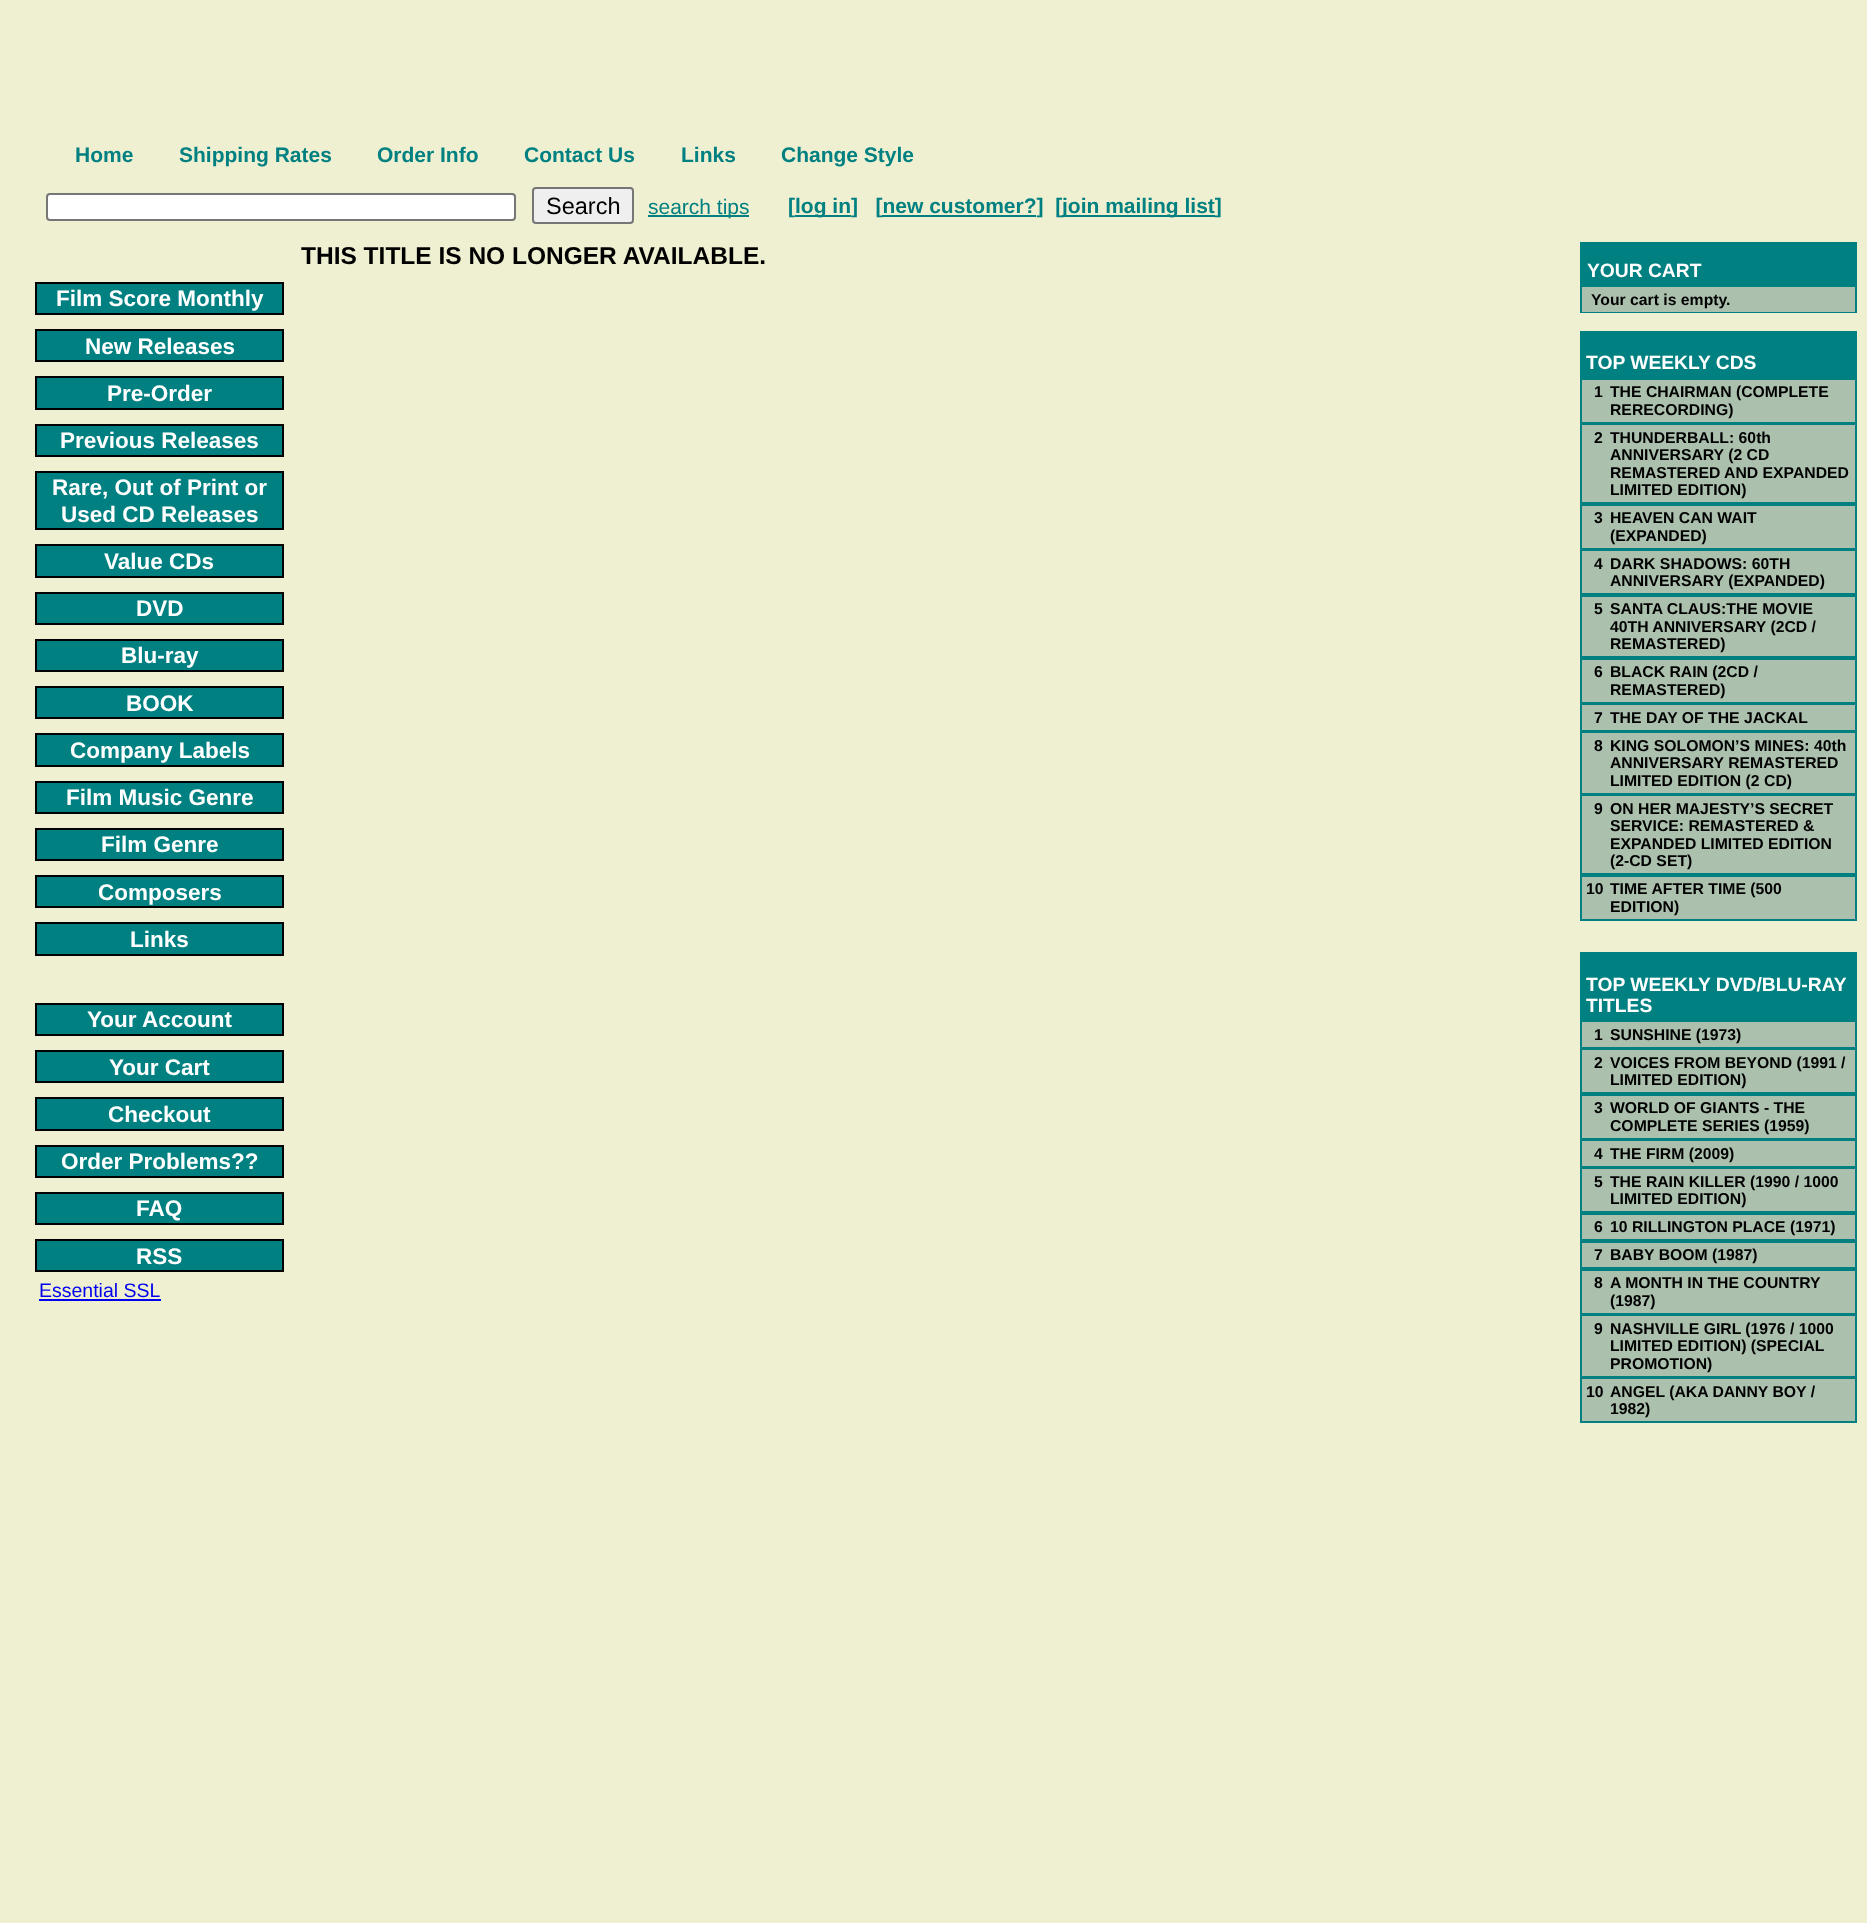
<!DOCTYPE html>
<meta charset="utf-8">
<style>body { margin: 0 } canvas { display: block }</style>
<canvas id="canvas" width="1867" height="1923"></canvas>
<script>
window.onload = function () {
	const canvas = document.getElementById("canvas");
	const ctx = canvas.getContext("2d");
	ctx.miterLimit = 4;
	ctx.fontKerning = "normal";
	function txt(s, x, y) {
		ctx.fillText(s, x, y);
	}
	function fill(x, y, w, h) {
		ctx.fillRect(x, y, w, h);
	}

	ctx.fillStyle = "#EFEFD1";
	fill(0, 0, 1867, 1923);
	ctx.fillStyle = "#FFFFFF";
	ctx.beginPath();
	ctx.roundRect(47, 194, 468, 26, 3);
	ctx.fill();
	ctx.strokeStyle = "#767676";
	ctx.lineWidth = 2;
	ctx.stroke();
	ctx.fillStyle = "#EFEFEF";
	ctx.beginPath();
	ctx.roundRect(533, 188, 100, 35, 3);
	ctx.fill();
	ctx.stroke();
	ctx.fillStyle = "#008080";
	fill(648, 215, 101, 2);
	fill(795, 215, 56, 2);
	fill(882, 215, 154, 2);
	fill(1062, 215, 153, 2);
	ctx.beginPath();
	ctx.rect(36, 283, 247, 31);
	ctx.fill();
	ctx.strokeStyle = "#000000";
	ctx.stroke();
	ctx.beginPath();
	ctx.rect(36, 330, 247, 31);
	ctx.fill();
	ctx.stroke();
	ctx.beginPath();
	ctx.rect(36, 377, 247, 32);
	ctx.fill();
	ctx.stroke();
	ctx.beginPath();
	ctx.rect(36, 425, 247, 31);
	ctx.fill();
	ctx.stroke();
	ctx.beginPath();
	ctx.rect(36, 472, 247, 57);
	ctx.fill();
	ctx.stroke();
	ctx.beginPath();
	ctx.rect(36, 545, 247, 32);
	ctx.fill();
	ctx.stroke();
	ctx.beginPath();
	ctx.rect(36, 593, 247, 31);
	ctx.fill();
	ctx.stroke();
	ctx.beginPath();
	ctx.rect(36, 640, 247, 31);
	ctx.fill();
	ctx.stroke();
	ctx.beginPath();
	ctx.rect(36, 687, 247, 31);
	ctx.fill();
	ctx.stroke();
	ctx.beginPath();
	ctx.rect(36, 734, 247, 32);
	ctx.fill();
	ctx.stroke();
	ctx.beginPath();
	ctx.rect(36, 782, 247, 31);
	ctx.fill();
	ctx.stroke();
	ctx.beginPath();
	ctx.rect(36, 829, 247, 31);
	ctx.fill();
	ctx.stroke();
	ctx.beginPath();
	ctx.rect(36, 876, 247, 31);
	ctx.fill();
	ctx.stroke();
	ctx.beginPath();
	ctx.rect(36, 923, 247, 32);
	ctx.fill();
	ctx.stroke();
	ctx.beginPath();
	ctx.rect(36, 1004, 247, 31);
	ctx.fill();
	ctx.stroke();
	ctx.beginPath();
	ctx.rect(36, 1051, 247, 31);
	ctx.fill();
	ctx.stroke();
	ctx.beginPath();
	ctx.rect(36, 1098, 247, 32);
	ctx.fill();
	ctx.stroke();
	ctx.beginPath();
	ctx.rect(36, 1146, 247, 31);
	ctx.fill();
	ctx.stroke();
	ctx.beginPath();
	ctx.rect(36, 1193, 247, 31);
	ctx.fill();
	ctx.stroke();
	ctx.beginPath();
	ctx.rect(36, 1240, 247, 31);
	ctx.fill();
	ctx.stroke();
	ctx.fillStyle = "#0000EE";
	fill(39, 1299, 122, 2);
	ctx.fillStyle = "#008080";
	fill(1580, 242, 277, 71);
	ctx.fillStyle = "#ABC1AE";
	fill(1582, 287, 273, 25);
	ctx.fillStyle = "#008080";
	fill(1580, 331, 277, 590);
	ctx.fillStyle = "#ABC1AE";
	fill(1582, 380, 273, 42);
	fill(1582, 425, 273, 77);
	fill(1582, 506, 273, 42);
	fill(1582, 551, 273, 42);
	fill(1582, 597, 273, 59);
	fill(1582, 660, 273, 42);
	fill(1582, 705, 273, 25);
	fill(1582, 733, 273, 60);
	fill(1582, 796, 273, 77);
	fill(1582, 877, 273, 42);
	ctx.fillStyle = "#008080";
	fill(1580, 952, 277, 471);
	ctx.fillStyle = "#ABC1AE";
	fill(1582, 1022, 273, 25);
	fill(1582, 1050, 273, 42);
	fill(1582, 1096, 273, 42);
	fill(1582, 1141, 273, 25);
	fill(1582, 1169, 273, 42);
	fill(1582, 1215, 273, 24);
	fill(1582, 1243, 273, 24);
	fill(1582, 1271, 273, 42);
	fill(1582, 1316, 273, 60);
	fill(1582, 1379, 273, 42);
	ctx.font = "bold 21px Liberation Sans";
	ctx.fillStyle = "#008080";
	txt("Home", 75, 162);
	txt("Shipping Rates", 179, 162);
	txt("Order Info", 377, 162);
	txt("Contact Us", 524, 162);
	txt("Links", 681, 162);
	txt("Change Style", 781, 162);
	ctx.font = "23.5px Liberation Sans";
	ctx.fillStyle = "#000000";
	txt("Search", 546, 214);
	ctx.font = "21px Liberation Sans";
	ctx.fillStyle = "#008080";
	txt("search tips", 648, 214);
	ctx.font = "bold 21px Liberation Sans";
	txt("[", 788, 213);
	txt("log in]   [new customer?]  [", 795, 213);
	txt("join mailing list]", 1062, 213);
	ctx.font = "bold 24.5px Liberation Sans";
	ctx.fillStyle = "#000000";
	txt("THIS TITLE IS NO LONGER AVAILABLE.", 301, 264);
	ctx.font = "bold 22.5px Liberation Sans";
	ctx.fillStyle = "#FFFFFF";
	txt("Film Score Monthly", 56, 306);
	txt("New Releases", 85, 354);
	txt("Pre-Order", 107, 401);
	txt("Previous Releases", 60, 448);
	txt("Rare, Out of Print or", 52, 495);
	txt("Used CD Releases", 61, 522);
	txt("Value CDs", 104, 569);
	txt("DVD", 136, 616);
	txt("Blu-ray", 121, 663);
	txt("BOOK", 126, 711);
	txt("Company Labels", 70, 758);
	txt("Film Music Genre", 66, 805);
	txt("Film Genre", 101, 852);
	txt("Composers", 98, 900);
	txt("Links", 130, 947);
	txt("Your Account", 87, 1027);
	txt("Your Cart", 109, 1075);
	txt("Checkout", 108, 1122);
	txt("Order Problems??", 61, 1169);
	txt("FAQ", 136, 1216);
	txt("RSS", 136, 1264);
	ctx.font = "19.5px Liberation Sans";
	ctx.fillStyle = "#0000EE";
	txt("Essential SSL", 39, 1297);
	ctx.font = "bold 19.25px Liberation Sans";
	ctx.fillStyle = "#FFFFFF";
	txt("YOUR CART", 1587, 277);
	ctx.font = "bold 15.75px Liberation Sans";
	ctx.fillStyle = "#000000";
	txt("Your cart is empty.", 1591, 305);
	ctx.font = "bold 19.25px Liberation Sans";
	ctx.fillStyle = "#FFFFFF";
	txt("TOP WEEKLY CDS", 1586, 369);
	ctx.font = "bold 15.75px Liberation Sans";
	ctx.fillStyle = "#000000";
	txt("1", 1594, 397);
	txt("THE CHAIRMAN (COMPLETE", 1610, 397);
	txt("RERECORDING)", 1610, 415);
	txt("2", 1594, 443);
	txt("THUNDERBALL: 60th", 1610, 443);
	txt("ANNIVERSARY (2 CD", 1610, 460);
	txt("REMASTERED AND EXPANDED", 1610, 478);
	txt("LIMITED EDITION)", 1610, 495);
	txt("3", 1594, 523);
	txt("HEAVEN CAN WAIT", 1610, 523);
	txt("(EXPANDED)", 1610, 541);
	txt("4", 1594, 569);
	txt("DARK SHADOWS: 60TH", 1610, 569);
	txt("ANNIVERSARY (EXPANDED)", 1610, 586);
	txt("5", 1594, 614);
	txt("SANTA CLAUS:THE MOVIE", 1610, 614);
	txt("40TH ANNIVERSARY (2CD /", 1610, 632);
	txt("REMASTERED)", 1610, 649);
	txt("6", 1594, 677);
	txt("BLACK RAIN (2CD /", 1610, 677);
	txt("REMASTERED)", 1610, 695);
	txt("7", 1594, 723);
	txt("THE DAY OF THE JACKAL", 1610, 723);
	txt("8", 1594, 751);
	txt("KING SOLOMON’S MINES: 40th", 1610, 751);
	txt("ANNIVERSARY REMASTERED", 1610, 768);
	txt("LIMITED EDITION (2 CD)", 1610, 786);
	txt("9", 1594, 814);
	txt("ON HER MAJESTY’S SECRET", 1610, 814);
	txt("SERVICE: REMASTERED &", 1610, 831);
	txt("EXPANDED LIMITED EDITION", 1610, 849);
	txt("(2-CD SET)", 1610, 866);
	txt("10", 1586, 894);
	txt("TIME AFTER TIME (500", 1610, 894);
	txt("EDITION)", 1610, 912);
	ctx.font = "bold 19.25px Liberation Sans";
	ctx.fillStyle = "#FFFFFF";
	txt("TOP WEEKLY DVD/BLU-RAY", 1586, 991);
	txt("TITLES", 1586, 1012);
	ctx.font = "bold 15.75px Liberation Sans";
	ctx.fillStyle = "#000000";
	txt("1", 1594, 1040);
	txt("SUNSHINE (1973)", 1610, 1040);
	txt("2", 1594, 1068);
	txt("VOICES FROM BEYOND (1991 /", 1610, 1068);
	txt("LIMITED EDITION)", 1610, 1085);
	txt("3", 1594, 1113);
	txt("WORLD OF GIANTS - THE", 1610, 1113);
	txt("COMPLETE SERIES (1959)", 1610, 1131);
	txt("4", 1594, 1159);
	txt("THE FIRM (2009)", 1610, 1159);
	txt("5", 1594, 1187);
	txt("THE RAIN KILLER (1990 / 1000", 1610, 1187);
	txt("LIMITED EDITION)", 1610, 1204);
	txt("6", 1594, 1232);
	txt("10 RILLINGTON PLACE (1971)", 1610, 1232);
	txt("7", 1594, 1260);
	txt("BABY BOOM (1987)", 1610, 1260);
	txt("8", 1594, 1288);
	txt("A MONTH IN THE COUNTRY", 1610, 1288);
	txt("(1987)", 1610, 1306);
	txt("9", 1594, 1334);
	txt("NASHVILLE GIRL (1976 / 1000", 1610, 1334);
	txt("LIMITED EDITION) (SPECIAL", 1610, 1351);
	txt("PROMOTION)", 1610, 1369);
	txt("10", 1586, 1397);
	txt("ANGEL (AKA DANNY BOY /", 1610, 1397);
	txt("1982)", 1610, 1414);
};
</script>
